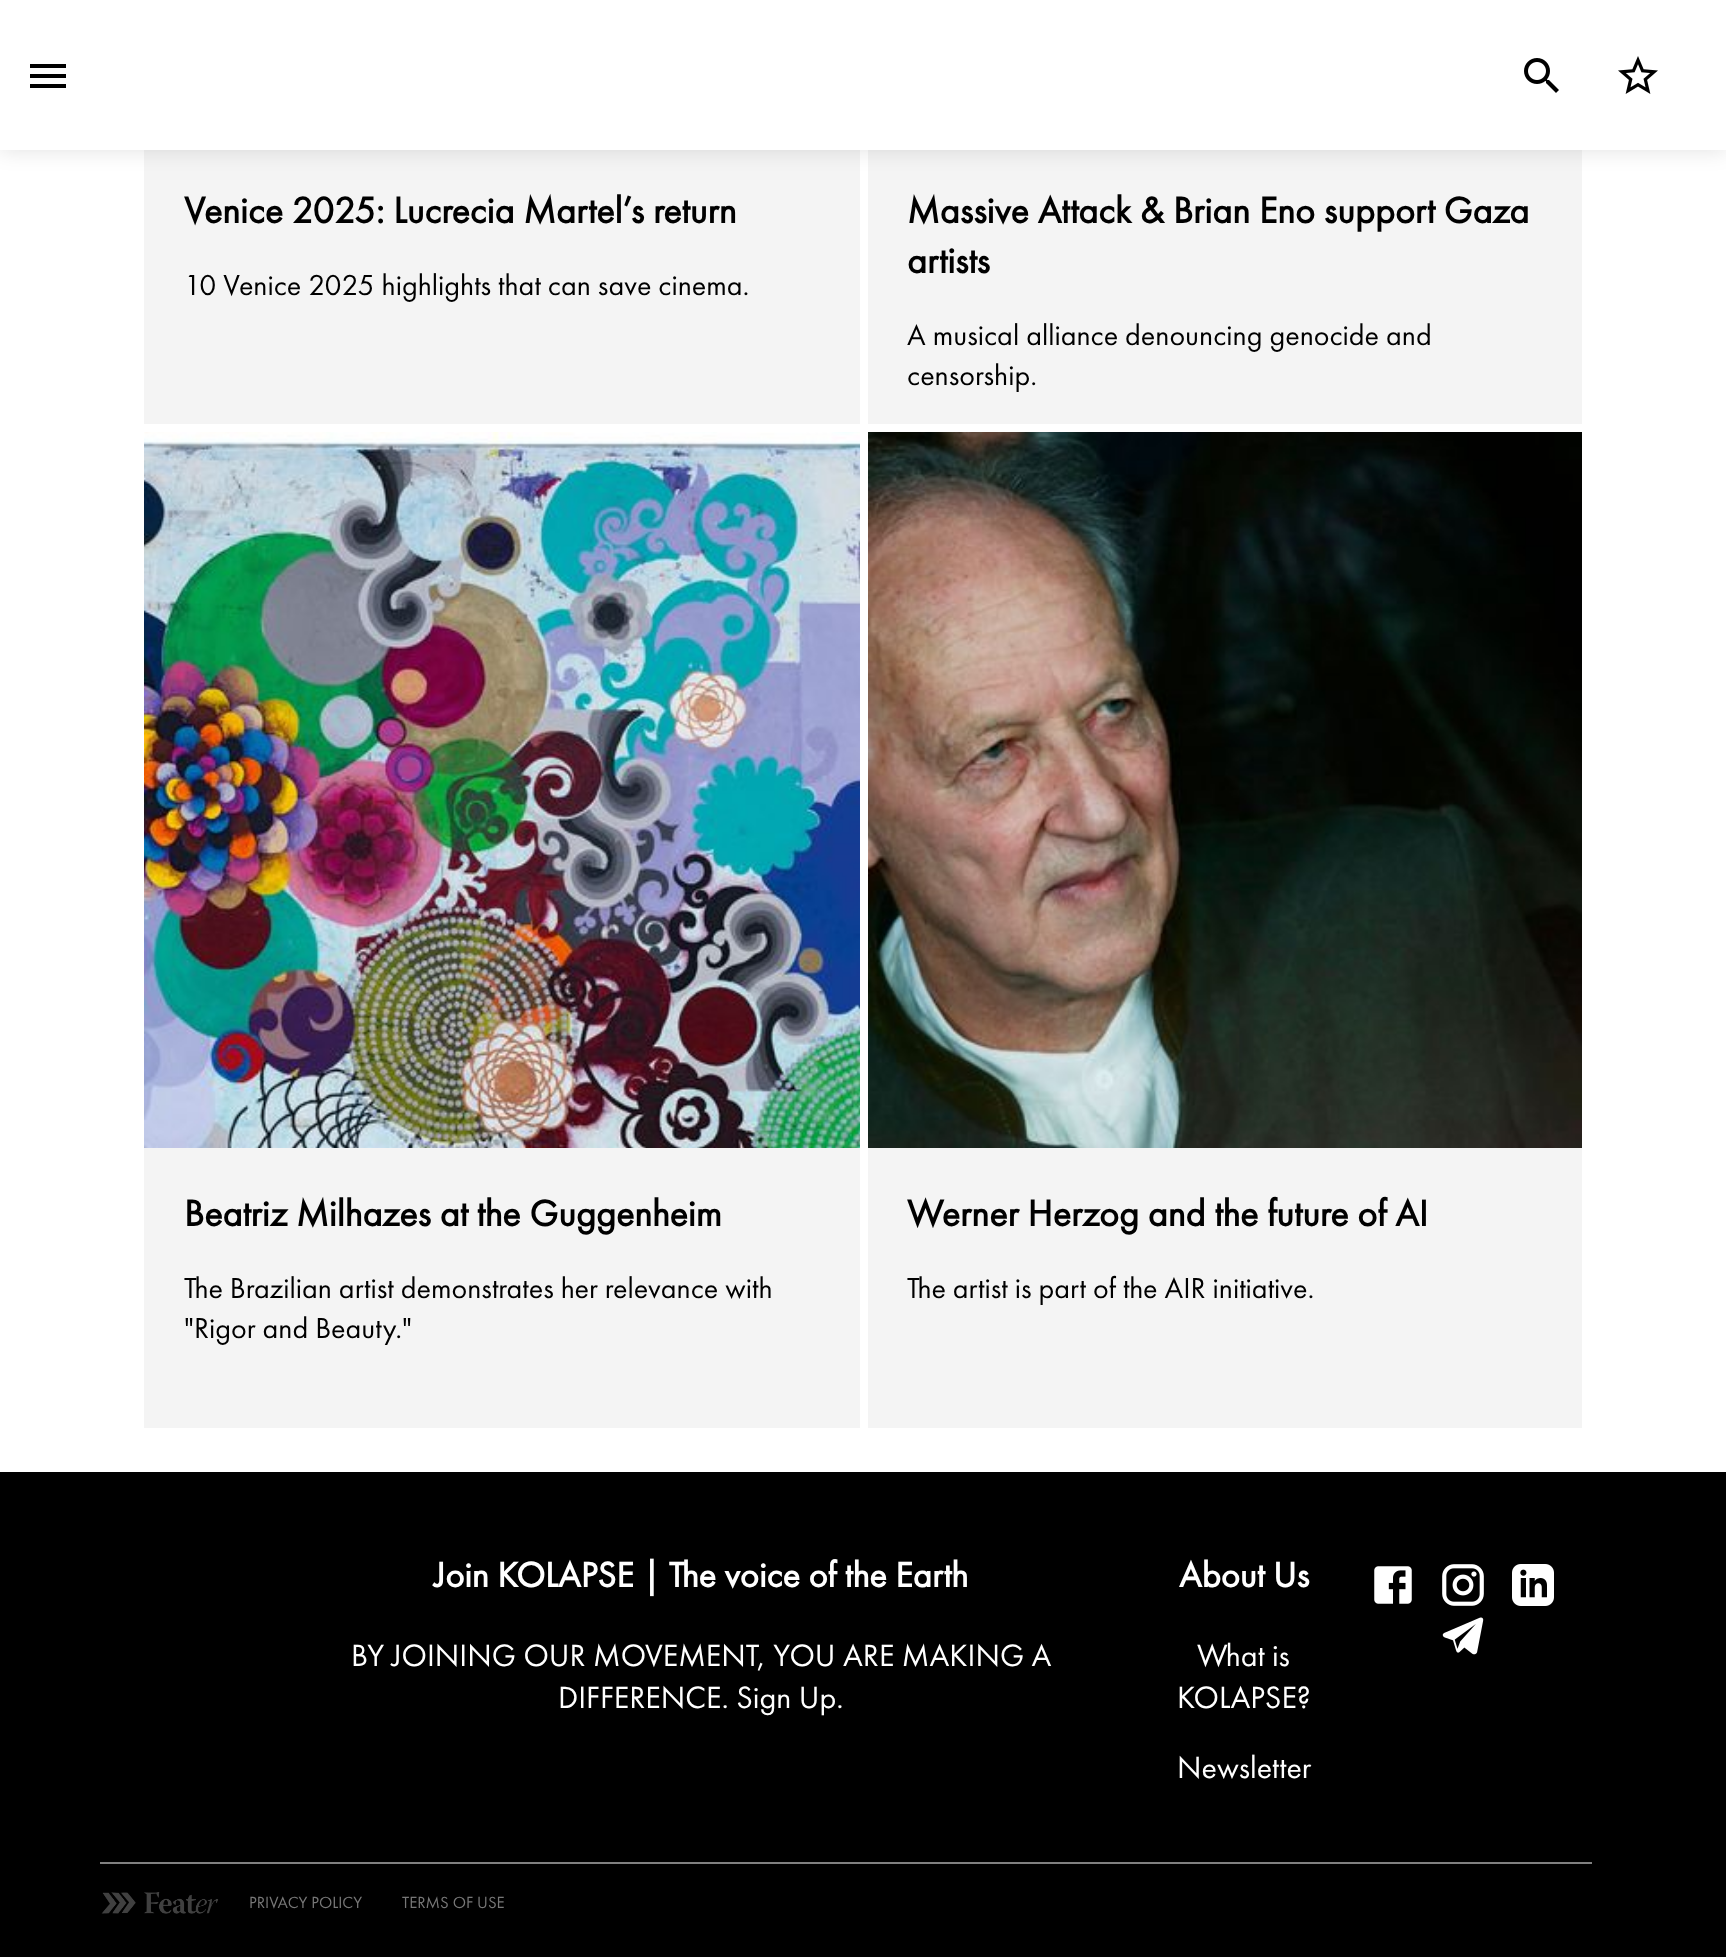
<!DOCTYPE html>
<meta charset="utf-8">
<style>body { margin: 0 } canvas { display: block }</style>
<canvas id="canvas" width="1726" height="1957"></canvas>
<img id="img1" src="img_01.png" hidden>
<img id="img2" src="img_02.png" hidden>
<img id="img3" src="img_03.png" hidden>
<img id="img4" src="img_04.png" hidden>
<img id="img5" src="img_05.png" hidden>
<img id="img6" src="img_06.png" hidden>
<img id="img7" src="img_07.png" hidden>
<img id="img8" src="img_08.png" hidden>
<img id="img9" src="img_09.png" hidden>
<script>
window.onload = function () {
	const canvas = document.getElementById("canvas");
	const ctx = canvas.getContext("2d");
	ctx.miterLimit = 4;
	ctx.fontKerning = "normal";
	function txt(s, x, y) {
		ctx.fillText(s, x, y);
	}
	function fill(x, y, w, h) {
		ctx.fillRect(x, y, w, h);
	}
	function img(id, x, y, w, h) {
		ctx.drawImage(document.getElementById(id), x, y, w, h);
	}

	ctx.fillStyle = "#FFFFFF";
	fill(0, 0, 1726, 1957);
	ctx.fillStyle = "#F4F4F4";
	fill(144, 150, 716, 274);
	fill(868, 150, 714, 274);
	ctx.fillStyle = "rgba(0, 0, 0, 0.1)";
	ctx.filter = "blur(10px)";
	ctx.beginPath();
	ctx.rect(0, 2, 1726, 150);
	ctx.fill();
	ctx.filter = "none";
	ctx.fillStyle = "#FFFFFF";
	fill(0, 0, 1726, 150);
	ctx.fillStyle = "#000000";
	ctx.beginPath();
	ctx.moveTo(30, 88);
	ctx.lineTo(66, 88);
	ctx.lineTo(66, 84);
	ctx.lineTo(30, 84);
	ctx.closePath();
	ctx.moveTo(30, 78);
	ctx.lineTo(66, 78);
	ctx.lineTo(66, 74);
	ctx.lineTo(30, 74);
	ctx.closePath();
	ctx.moveTo(30, 64);
	ctx.lineTo(30, 68);
	ctx.lineTo(66, 68);
	ctx.lineTo(66, 64);
	ctx.closePath();
	ctx.fill();
	img("img1", 1524, 58, 35, 35);
	img("img2", 1618, 56, 40, 38);
	ctx.fillStyle = "#F4F4F4";
	fill(144, 1148, 716, 280);
	img("img3", 144, 432, 716, 716);
	fill(868, 1148, 714, 280);
	img("img4", 868, 432, 714, 716);
	ctx.fillStyle = "#000000";
	fill(0, 1472, 1726, 485);
	img("img5", 1374, 1566, 38, 38);
	img("img6", 1442, 1564, 42, 42);
	img("img7", 1512, 1564, 42, 42);
	img("img8", 1442, 1617, 42, 38);
	ctx.fillStyle = "#808080";
	fill(100, 1862, 1492, 2);
	img("img9", 101, 1892, 118, 22);
	ctx.font = "bold 38px Futura PT";
	ctx.fillStyle = "#000000";
	txt("Venice 2025: Lucrecia Martel’s return", 184, 223);
	ctx.font = "30px Futura PT";
	txt("10 Venice 2025 highlights that can save cinema.", 184, 295);
	ctx.font = "bold 38px Futura PT";
	txt("Massive Attack & Brian Eno support Gaza", 907, 223);
	txt("artists", 907, 273);
	ctx.font = "30px Futura PT";
	txt("A musical alliance denouncing genocide and", 907, 345);
	txt("censorship.", 907, 385);
	ctx.font = "bold 38px Futura PT";
	txt("Beatriz Milhazes at the Guggenheim", 184, 1226);
	ctx.font = "30px Futura PT";
	txt("The Brazilian artist demonstrates her relevance with", 184, 1298);
	txt("\"Rigor and Beauty.\"", 184, 1338);
	ctx.font = "bold 38px Futura PT";
	txt("Werner Herzog and the future of AI", 907, 1226);
	ctx.font = "30px Futura PT";
	txt("The artist is part of the AIR initiative.", 907, 1298);
	ctx.font = "bold 36.4px Futura PT";
	ctx.fillStyle = "#FFFFFF";
	txt("Join KOLAPSE | The voice of the Earth", 434, 1587);
	ctx.font = "32px Futura PT";
	txt("BY JOINING OUR MOVEMENT, YOU ARE MAKING A", 351, 1666);
	txt("DIFFERENCE. Sign Up.", 558, 1708);
	ctx.font = "bold 36.4px Futura PT";
	txt("About Us", 1179, 1587);
	ctx.font = "32px Futura PT";
	txt("What is", 1197, 1666);
	txt("KOLAPSE?", 1177, 1708);
	txt("Newsletter", 1177, 1778);
	ctx.font = "16.75px Futura PT";
	ctx.fillStyle = "#777777";
	txt("PRIVACY POLICY", 249, 1908);
	txt("TERMS OF USE", 402, 1908);
};
</script>
